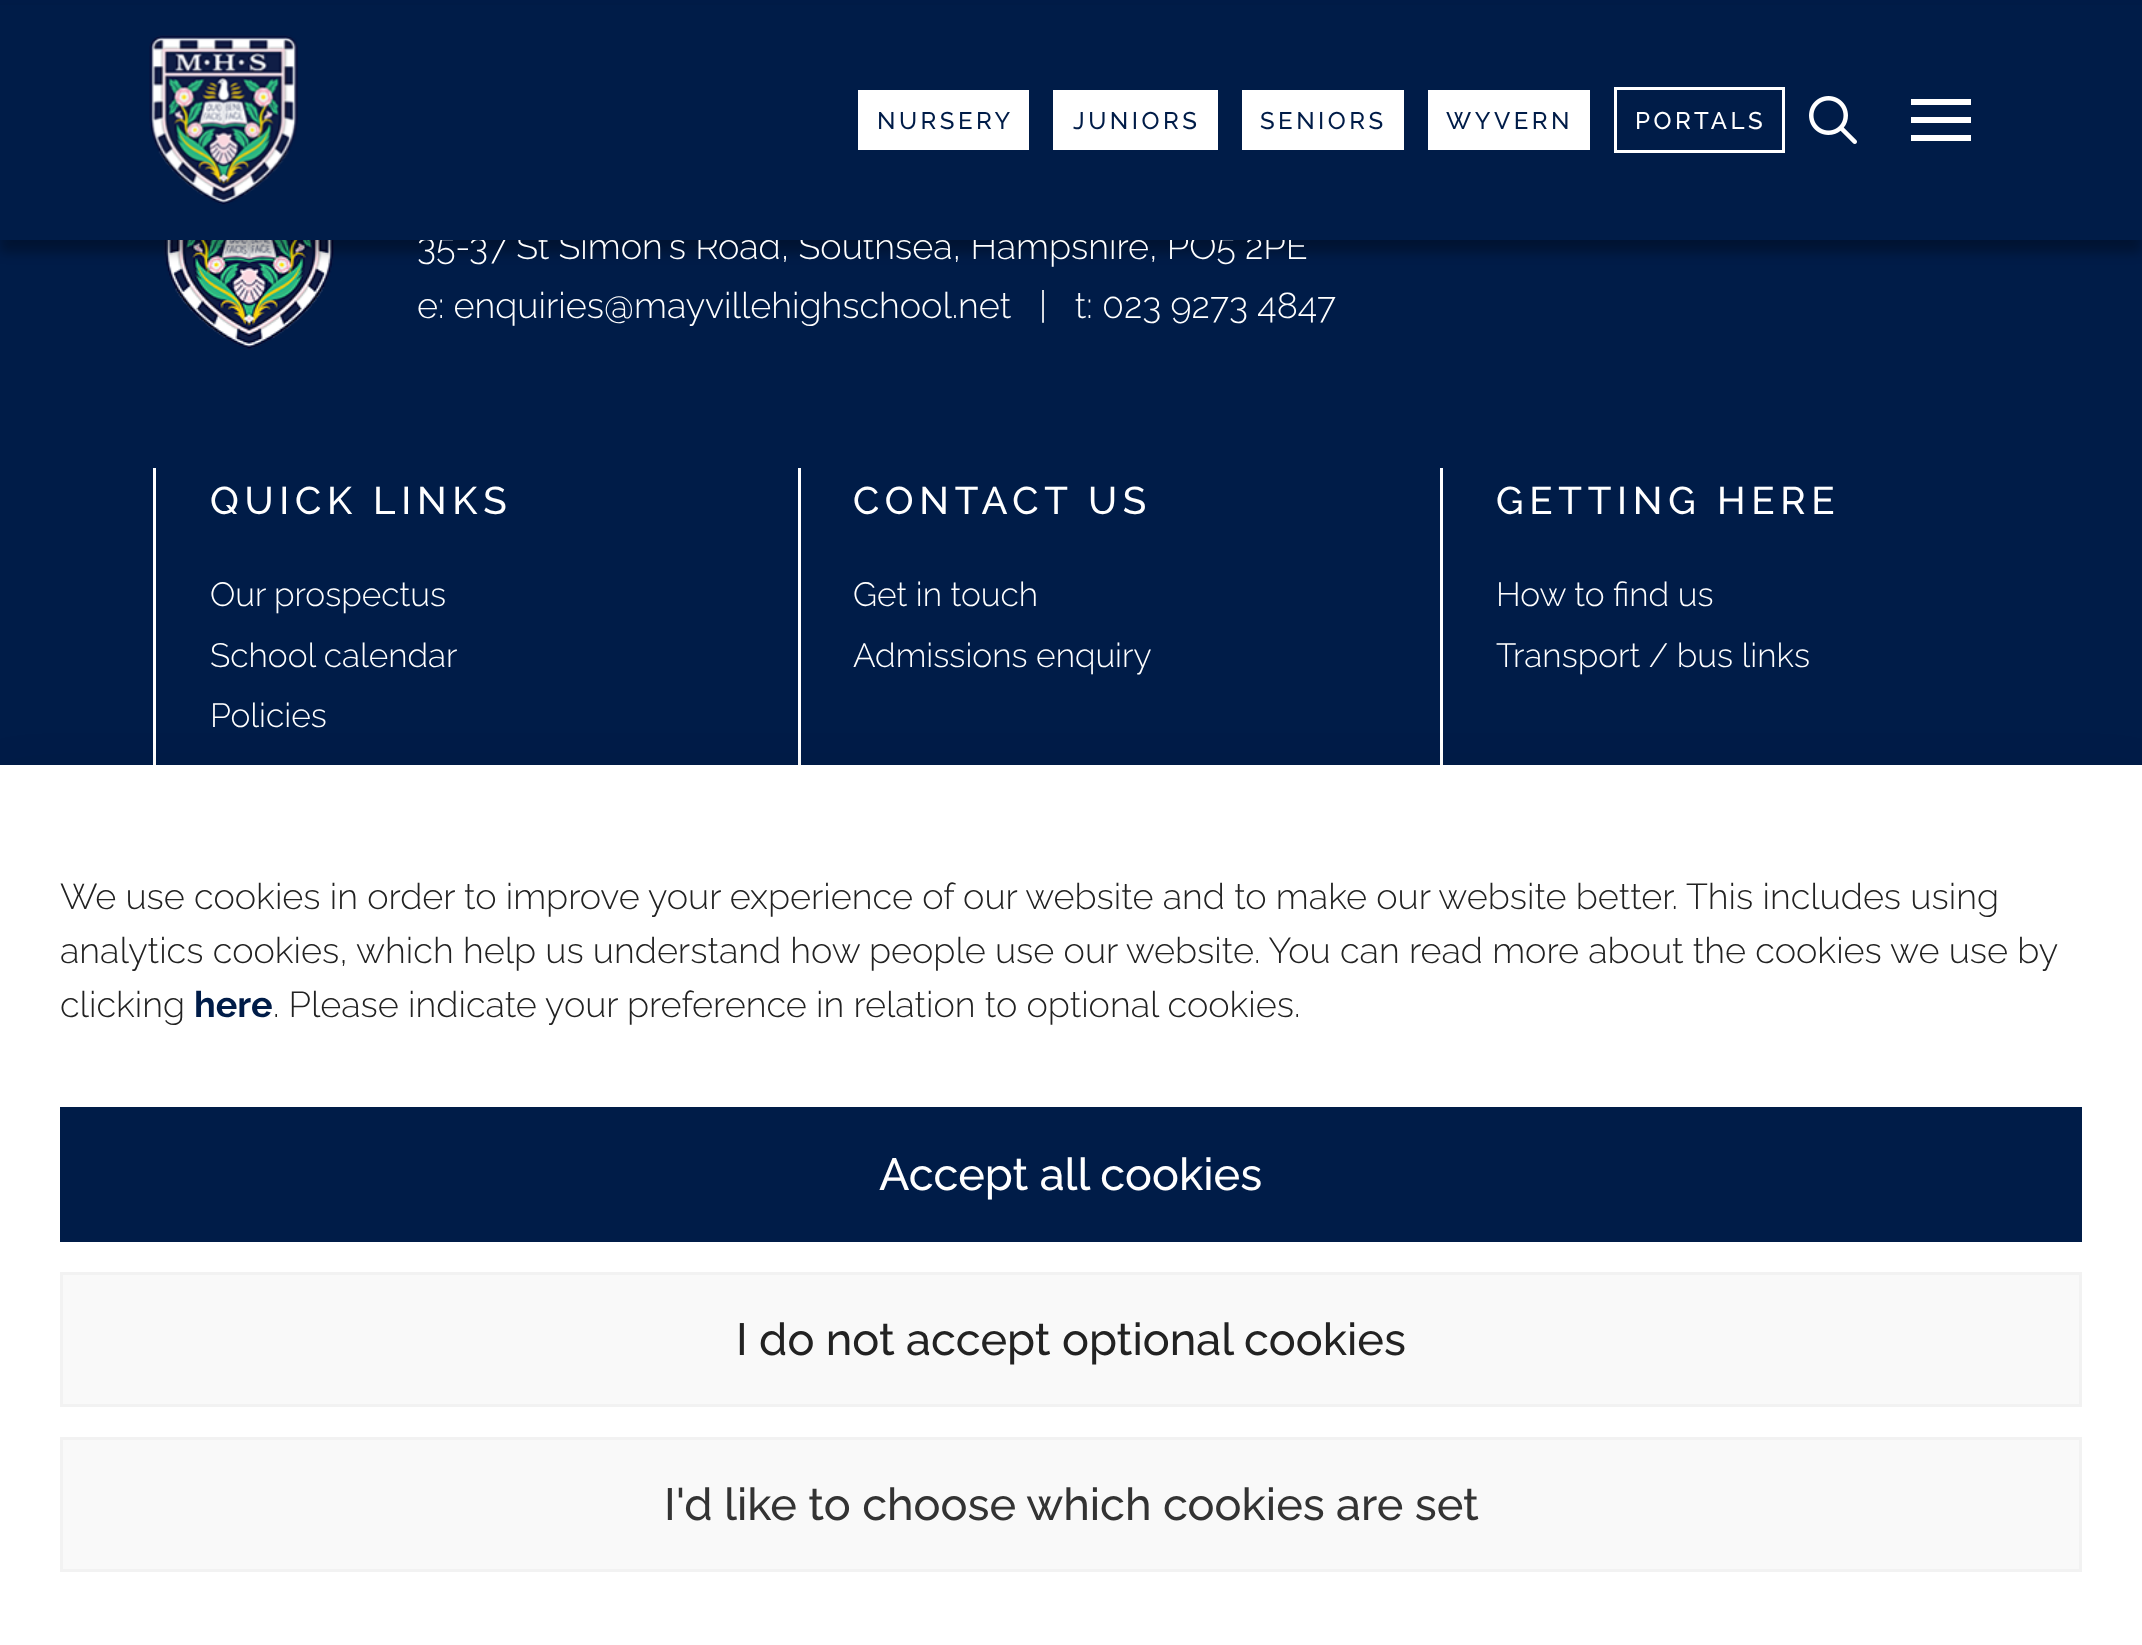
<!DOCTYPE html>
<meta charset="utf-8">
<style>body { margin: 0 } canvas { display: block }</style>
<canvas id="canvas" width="2142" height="1645"></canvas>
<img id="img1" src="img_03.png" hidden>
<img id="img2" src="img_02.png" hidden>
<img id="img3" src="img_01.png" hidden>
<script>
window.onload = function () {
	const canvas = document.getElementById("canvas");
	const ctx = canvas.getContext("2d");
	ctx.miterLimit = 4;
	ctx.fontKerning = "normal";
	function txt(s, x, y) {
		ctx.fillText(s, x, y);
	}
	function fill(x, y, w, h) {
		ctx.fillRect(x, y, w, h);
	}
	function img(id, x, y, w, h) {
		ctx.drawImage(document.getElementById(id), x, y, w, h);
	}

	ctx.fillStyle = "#001C48";
	fill(0, 0, 2142, 1645);
	img("img1", 163, 240, 171, 110);
	ctx.fillStyle = "rgba(0, 0, 0, 0.3)";
	ctx.filter = "blur(6px)";
	ctx.beginPath();
	ctx.rect(0, 12, 2142, 240);
	ctx.fill();
	ctx.filter = "none";
	ctx.fillStyle = "#FFFFFF";
	fill(153, 468, 3, 297);
	fill(798, 468, 3, 297);
	fill(1440, 468, 3, 297);
	ctx.fillStyle = "rgba(0, 0, 0, 0.19)";
	ctx.filter = "blur(30px)";
	ctx.beginPath();
	ctx.rect(0, 795, 2142, 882);
	ctx.fill();
	ctx.filter = "none";
	ctx.fillStyle = "#FFFFFF";
	fill(0, 765, 2142, 880);
	ctx.fillStyle = "#001C48";
	fill(60, 1107, 2022, 135);
	ctx.fillStyle = "#F9F9F9";
	ctx.beginPath();
	ctx.rect(61.5, 1273.5, 2019, 132);
	ctx.fill();
	ctx.strokeStyle = "#F2F2F2";
	ctx.lineWidth = 3;
	ctx.stroke();
	ctx.beginPath();
	ctx.rect(61.5, 1438.5, 2019, 132);
	ctx.fill();
	ctx.stroke();
	ctx.font = "300 36px Raleway";
	ctx.fillStyle = "#FFFFFF";
	txt("35-37 St Simon's Road, Southsea, Hampshire, PO5 2PE", 417, 259);
	ctx.fillStyle = "#001C48";
	fill(0, 5, 2142, 235);
	ctx.fillStyle = "#FFFFFF";
	fill(1911, 135, 60, 6);
	fill(1911, 117, 60, 6);
	fill(1911, 99, 60, 6);
	img("img2", 1809, 96, 48, 48);
	ctx.strokeStyle = "#FFFFFF";
	ctx.strokeRect(1615.5, 88.5, 168, 63);
	ctx.letterSpacing = "3.5px";
	ctx.font = "500 24px Raleway";
	txt("PORTALS", 1635, 129);
	fill(1428, 90, 162, 60);
	ctx.fillStyle = "#001C48";
	txt("WYVERN", 1446, 129);
	ctx.fillStyle = "#FFFFFF";
	fill(1242, 90, 162, 60);
	ctx.fillStyle = "#001C48";
	txt("SENIORS", 1260, 129);
	ctx.fillStyle = "#FFFFFF";
	fill(1053, 90, 165, 60);
	ctx.fillStyle = "#001C48";
	txt("JUNIORS", 1073, 129);
	ctx.fillStyle = "#FFFFFF";
	fill(858, 90, 171, 60);
	ctx.fillStyle = "#001C48";
	txt("NURSERY", 877, 129);
	img("img3", 149, 35, 149, 170);
	ctx.letterSpacing = "0px";
	ctx.font = "300 36px Raleway";
	ctx.fillStyle = "#FFFFFF";
	txt("e: enquiries@mayvillehighschool.net", 417, 318);
	txt("|   t: 023 9273 4847", 1039, 318);
	ctx.letterSpacing = "5.75px";
	ctx.font = "500 38.5px Raleway";
	txt("QUICK LINKS", 210, 514);
	ctx.letterSpacing = "0px";
	ctx.font = "300 33.5px Raleway";
	txt("Our prospectus", 210, 606);
	txt("School calendar", 210, 667);
	txt("Policies", 210, 727);
	ctx.letterSpacing = "5.75px";
	ctx.font = "500 38.5px Raleway";
	txt("CONTACT US", 853, 514);
	ctx.letterSpacing = "0px";
	ctx.font = "300 33.5px Raleway";
	txt("Get in touch", 853, 606);
	txt("Admissions enquiry", 853, 667);
	ctx.letterSpacing = "5.75px";
	ctx.font = "500 38.5px Raleway";
	txt("GETTING HERE", 1496, 514);
	ctx.letterSpacing = "0px";
	ctx.font = "300 33.5px Raleway";
	txt("How to find us", 1496, 606);
	txt("Transport / bus links", 1496, 667);
	ctx.font = "300 36px Raleway";
	ctx.fillStyle = "#222222";
	txt("We use cookies in order to improve your experience of our website and to make our website better. This includes using", 60, 909);
	txt("analytics cookies, which help us understand how people use our website. You can read more about the cookies we use by", 60, 963);
	txt("clicking", 60, 1017);
	ctx.font = "bold 36px Raleway";
	ctx.fillStyle = "#001C48";
	txt("here", 194, 1017);
	ctx.font = "300 36px Raleway";
	ctx.fillStyle = "#222222";
	txt(". Please indicate your preference in relation to optional cookies.", 273, 1017);
	ctx.font = "500 45px Raleway";
	ctx.fillStyle = "#FFFFFF";
	txt("Accept all cookies", 879, 1190);
	ctx.fillStyle = "#222222";
	txt("I do not accept optional cookies", 736, 1355);
	ctx.fillStyle = "#333333";
	txt("I'd like to choose which cookies are set", 664, 1520);
};
</script>
